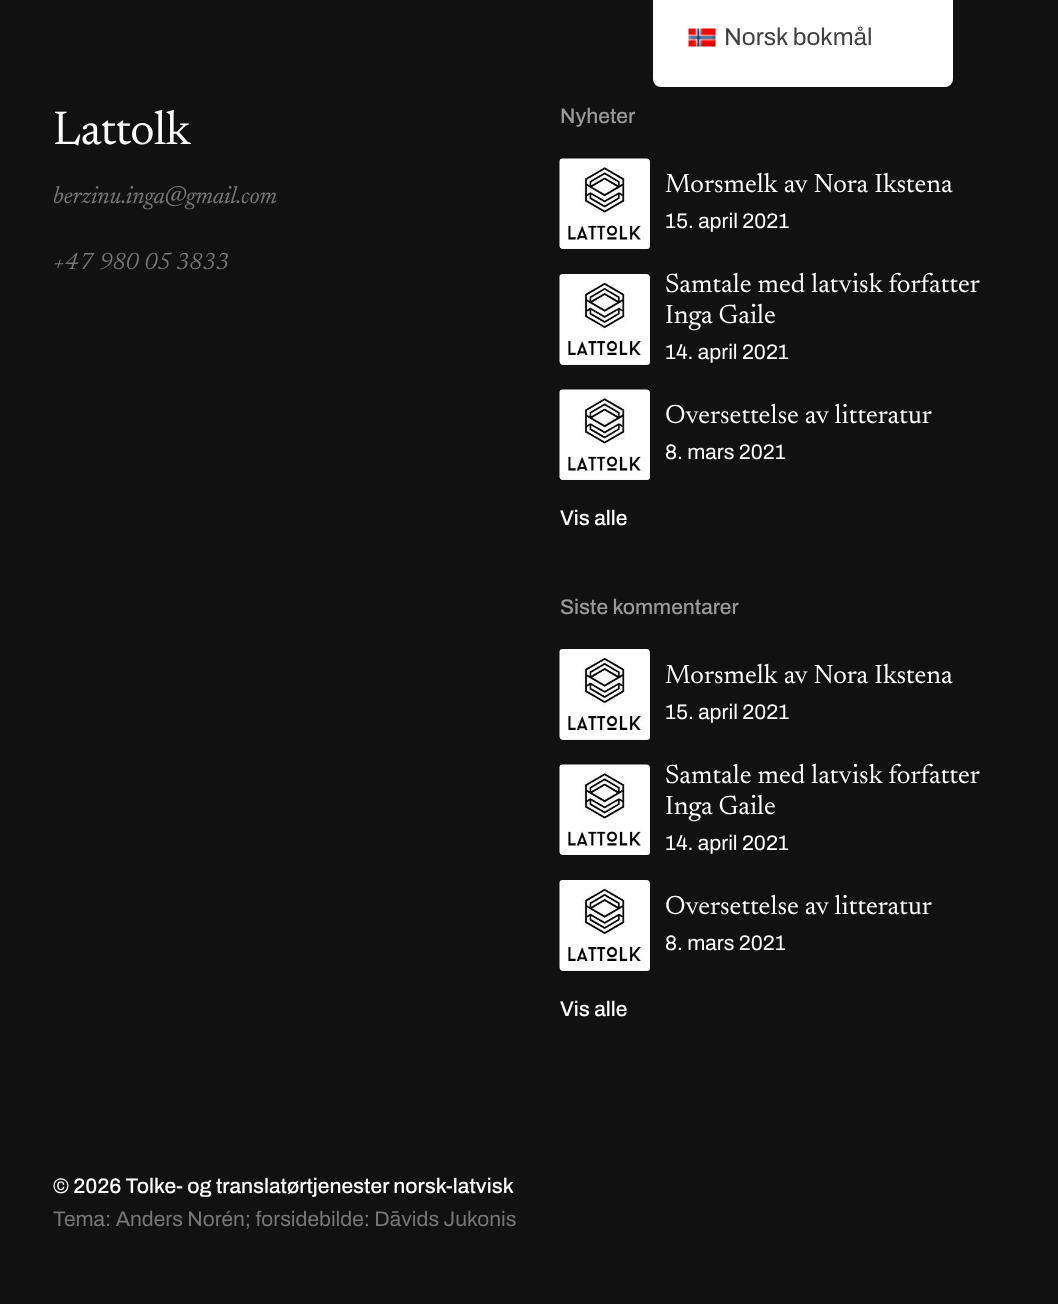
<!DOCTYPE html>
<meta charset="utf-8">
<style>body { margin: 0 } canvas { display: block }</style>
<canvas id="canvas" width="1058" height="1304"></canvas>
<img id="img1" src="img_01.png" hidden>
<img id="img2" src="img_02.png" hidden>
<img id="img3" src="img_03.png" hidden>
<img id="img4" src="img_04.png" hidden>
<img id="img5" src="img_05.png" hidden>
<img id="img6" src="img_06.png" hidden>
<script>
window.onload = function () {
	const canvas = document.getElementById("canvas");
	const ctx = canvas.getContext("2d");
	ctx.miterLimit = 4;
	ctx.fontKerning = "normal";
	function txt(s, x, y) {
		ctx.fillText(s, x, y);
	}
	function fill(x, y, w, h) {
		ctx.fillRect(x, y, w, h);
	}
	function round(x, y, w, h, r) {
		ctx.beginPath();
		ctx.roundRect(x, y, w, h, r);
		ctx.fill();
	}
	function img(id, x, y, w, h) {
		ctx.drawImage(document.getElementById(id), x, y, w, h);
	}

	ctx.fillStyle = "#111111";
	fill(0, 0, 1058, 1304);
	ctx.fillStyle = "#FFFFFF";
	ctx.beginPath();
	ctx.roundRect(653, 0, 300, 87, [0, 0, 8, 8]);
	ctx.fill();
	img("img1", 688, 28, 28, 19);
	ctx.fillStyle = "#F1F1F5";
	round(560, 159, 90, 90, 3);
	img("img2", 559, 158, 91, 91);
	round(560, 275, 90, 90, 3);
	img("img3", 559, 274, 91, 90);
	round(560, 390, 90, 90, 3);
	img("img4", 559, 389, 91, 91);
	round(560, 650, 90, 90, 3);
	img("img5", 559, 649, 91, 90);
	round(560, 765, 90, 90, 3);
	img("img4", 559, 764, 91, 91);
	round(560, 881, 90, 90, 3);
	img("img6", 559, 880, 91, 90);
	ctx.font = "24.25px Archivo";
	ctx.fillStyle = "#404040";
	txt("Norsk bokmål", 724, 45);
	ctx.letterSpacing = "-0.5px";
	ctx.font = "48px Newsreader";
	ctx.fillStyle = "#FFFFFF";
	txt("Lattolk", 53, 144);
	ctx.letterSpacing = "0px";
	ctx.font = "italic 24px Newsreader";
	ctx.fillStyle = "#767676";
	txt("berzinu.inga@gmail.com", 53, 203);
	txt("+47 980 05 3833", 53, 269);
	ctx.font = "500 21px Archivo";
	ctx.fillStyle = "#999999";
	txt("Nyheter", 560, 123);
	ctx.font = "27px Newsreader";
	ctx.fillStyle = "#FFFFFF";
	txt("Morsmelk av Nora Ikstena", 665, 192);
	ctx.font = "21px Archivo";
	txt("15. april 2021", 665, 228);
	ctx.font = "27px Newsreader";
	txt("Samtale med latvisk forfatter", 665, 292);
	txt("Inga Gaile", 665, 323);
	ctx.font = "21px Archivo";
	txt("14. april 2021", 665, 359);
	ctx.font = "27px Newsreader";
	txt("Oversettelse av litteratur", 665, 423);
	ctx.font = "21px Archivo";
	txt("8. mars 2021", 665, 459);
	ctx.font = "500 21px Archivo";
	txt("Vis alle", 560, 525);
	ctx.fillStyle = "#999999";
	txt("Siste kommentarer", 560, 614);
	ctx.font = "27px Newsreader";
	ctx.fillStyle = "#FFFFFF";
	txt("Morsmelk av Nora Ikstena", 665, 683);
	ctx.font = "21px Archivo";
	txt("15. april 2021", 665, 719);
	ctx.font = "27px Newsreader";
	txt("Samtale med latvisk forfatter", 665, 783);
	txt("Inga Gaile", 665, 814);
	ctx.font = "21px Archivo";
	txt("14. april 2021", 665, 850);
	ctx.font = "27px Newsreader";
	txt("Oversettelse av litteratur", 665, 914);
	ctx.font = "21px Archivo";
	txt("8. mars 2021", 665, 950);
	ctx.font = "500 21px Archivo";
	txt("Vis alle", 560, 1016);
	txt("© 2026 Tolke- og translatørtjenester norsk-latvisk", 53, 1193);
	ctx.font = "21px Archivo";
	ctx.fillStyle = "#767676";
	txt("Tema: Anders Norén; forsidebilde: Dāvids Jukonis", 53, 1226);
};
</script>
